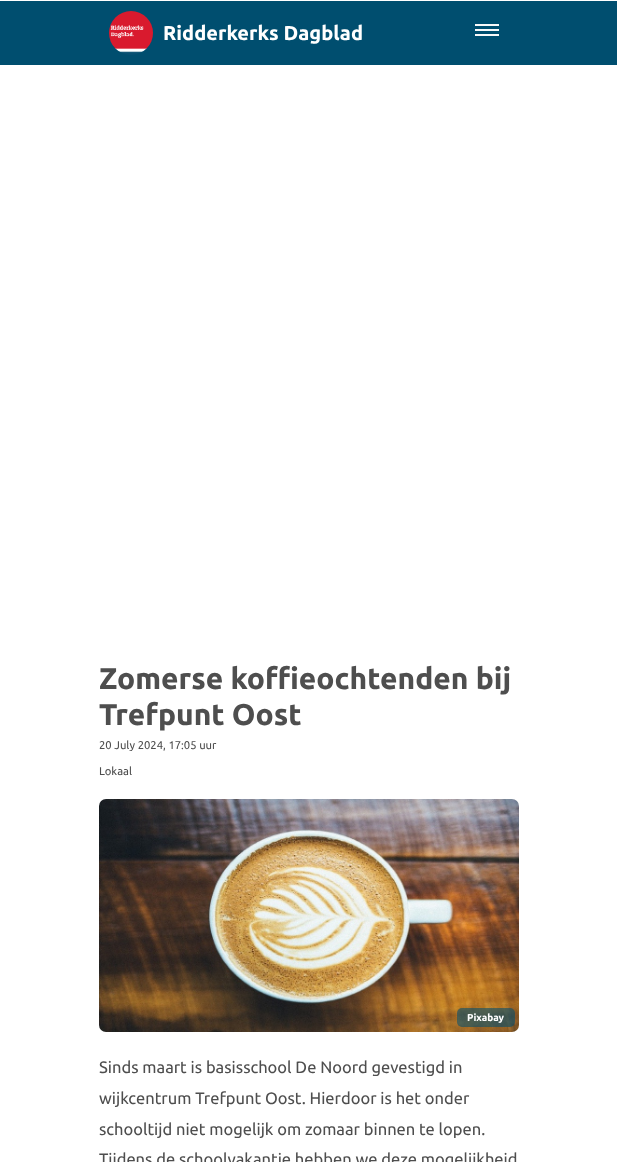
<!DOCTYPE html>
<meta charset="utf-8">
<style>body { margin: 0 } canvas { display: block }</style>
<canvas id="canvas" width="617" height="1162"></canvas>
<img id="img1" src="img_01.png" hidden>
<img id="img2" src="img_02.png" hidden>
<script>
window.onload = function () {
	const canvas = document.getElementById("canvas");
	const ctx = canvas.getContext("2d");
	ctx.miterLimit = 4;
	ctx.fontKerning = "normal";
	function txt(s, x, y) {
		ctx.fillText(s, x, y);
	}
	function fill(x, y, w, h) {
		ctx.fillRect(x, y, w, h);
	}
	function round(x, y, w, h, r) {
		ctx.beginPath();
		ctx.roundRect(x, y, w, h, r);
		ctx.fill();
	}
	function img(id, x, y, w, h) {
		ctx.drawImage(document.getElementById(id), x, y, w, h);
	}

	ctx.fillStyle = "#FFFFFF";
	fill(0, 0, 617, 1162);
	ctx.fillStyle = "#004E6F";
	fill(0, 1, 617, 64);
	img("img1", 109, 11, 44, 44);
	ctx.fillStyle = "#F9F9F9";
	fill(475, 29, 24, 2);
	fill(475, 24, 24, 2);
	fill(475, 34, 24, 2);
	img("img2", 99, 799, 420, 233);
	ctx.fillStyle = "rgba(0, 78, 111, 0.57)";
	round(457, 1008, 58, 19, 5);
	ctx.font = "bold 20px Ubuntu";
	ctx.fillStyle = "#FFFFFF";
	txt("Ridderkerks Dagblad", 163, 40);
	ctx.font = "bold 30px Ubuntu";
	ctx.fillStyle = "#4E4E4E";
	txt("Zomerse koffieochtenden bij", 99, 689);
	txt("Trefpunt Oost", 99, 725);
	ctx.font = "11.25px Ubuntu";
	txt("20 July 2024, 17:05 uur", 99, 749);
	txt("Lokaal", 99, 775);
	ctx.font = "bold 10px Ubuntu";
	ctx.fillStyle = "#FFFFFF";
	txt("Pixabay", 467, 1021);
	ctx.font = "16.5px Ubuntu";
	ctx.fillStyle = "#4E4E4E";
	txt("Sinds maart is basisschool De Noord gevestigd in", 99, 1073);
	txt("wijkcentrum Trefpunt Oost. Hierdoor is het onder", 99, 1104);
	txt("schooltijd niet mogelijk om zomaar binnen te lopen.", 99, 1135);
	txt("Tijdens de schoolvakantie hebben we deze mogelijkheid", 99, 1165);
};
</script>
